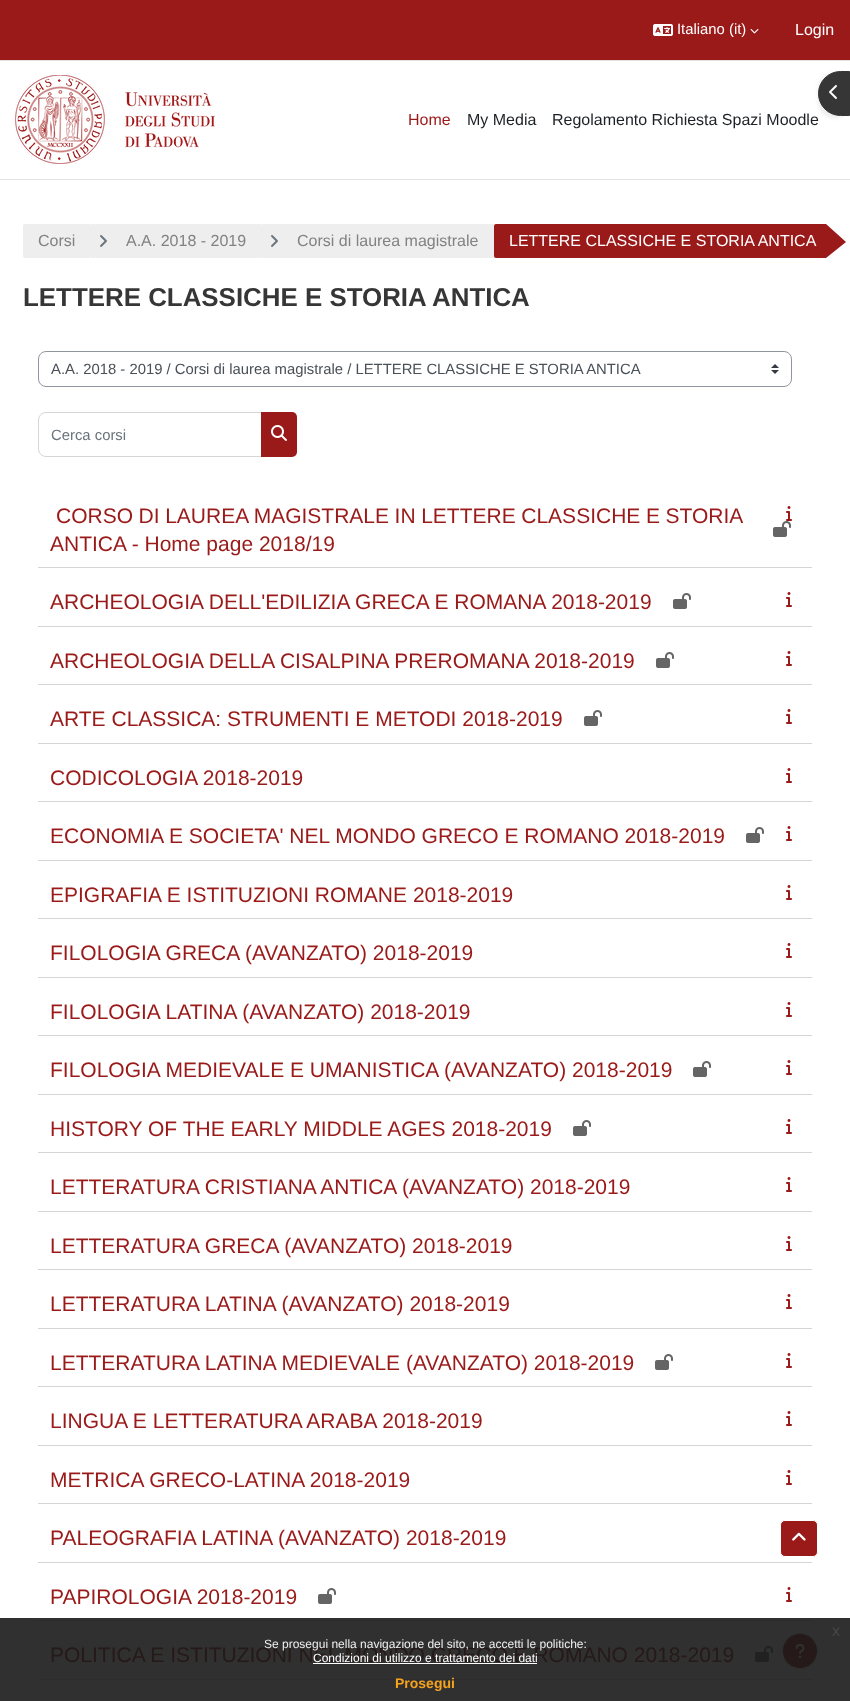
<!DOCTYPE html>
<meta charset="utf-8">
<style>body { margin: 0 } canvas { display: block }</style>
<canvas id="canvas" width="850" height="1701"></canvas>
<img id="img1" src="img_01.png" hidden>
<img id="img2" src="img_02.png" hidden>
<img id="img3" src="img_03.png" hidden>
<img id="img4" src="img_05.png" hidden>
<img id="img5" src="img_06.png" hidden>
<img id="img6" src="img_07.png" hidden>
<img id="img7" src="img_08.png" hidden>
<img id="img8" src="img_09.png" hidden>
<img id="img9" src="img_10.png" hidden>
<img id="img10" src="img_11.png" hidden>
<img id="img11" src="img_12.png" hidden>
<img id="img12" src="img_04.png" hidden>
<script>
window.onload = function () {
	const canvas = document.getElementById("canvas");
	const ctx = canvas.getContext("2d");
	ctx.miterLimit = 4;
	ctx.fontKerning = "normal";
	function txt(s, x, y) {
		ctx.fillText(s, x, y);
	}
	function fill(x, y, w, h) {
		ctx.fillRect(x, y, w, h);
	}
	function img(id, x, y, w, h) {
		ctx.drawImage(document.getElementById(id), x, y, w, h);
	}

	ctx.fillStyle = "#FFFFFF";
	fill(0, 0, 850, 1701);
	ctx.fillStyle = "#303030";
	fill(0, 1618, 850, 83);
	ctx.fillStyle = "#9A1919";
	fill(0, 0, 850, 60);
	ctx.fillStyle = "#E8E3E3";
	fill(0, 60, 850, 1);
	img("img1", 653, 24, 20, 12);
	img("img2", 750, 29, 9, 5);
	fill(0, 179, 850, 1);
	img("img3", 15, 75, 200, 89);
	ctx.fillStyle = "rgba(0, 0, 0, 0.07)";
	ctx.filter = "blur(2px)";
	ctx.beginPath();
	ctx.roundRect(818, 73, 32, 45, 23);
	ctx.fill();
	ctx.filter = "none";
	ctx.fillStyle = "#EEEEEE";
	ctx.beginPath();
	ctx.roundRect(23, 224, 67, 34, [2, 0, 0, 2]);
	ctx.fill();
	ctx.beginPath();
	ctx.roundRect(90, 224, 171, 34, [2, 0, 0, 2]);
	ctx.fill();
	img("img4", 100, 235, 7, 12);
	ctx.beginPath();
	ctx.roundRect(261, 224, 233, 34, [2, 0, 0, 2]);
	ctx.fill();
	img("img4", 271, 235, 7, 12);
	ctx.fillStyle = "#9A1919";
	ctx.beginPath();
	ctx.roundRect(494, 224, 332, 34, [2, 0, 0, 2]);
	ctx.fill();
	ctx.beginPath();
	ctx.moveTo(826, 258);
	ctx.lineTo(826, 224);
	ctx.lineTo(846, 242);
	ctx.closePath();
	ctx.fill();
	img("img5", 771, 364, 8, 10);
	ctx.beginPath();
	ctx.roundRect(38.5, 351.5, 753, 35, 7.5);
	ctx.strokeStyle = "#8F959E";
	ctx.stroke();
	ctx.beginPath();
	ctx.roundRect(38.5, 412.5, 223, 44, [7.5, 0, 0, 7.5]);
	ctx.strokeStyle = "#D5D5D5";
	ctx.stroke();
	ctx.beginPath();
	ctx.roundRect(261, 412, 36, 45, [0, 5, 5, 0]);
	ctx.fill();
	img("img6", 271, 425, 16, 16);
	ctx.fillStyle = "#D5D5D5";
	fill(38, 567, 774, 1);
	img("img7", 786, 506, 6, 15);
	img("img8", 773, 521, 18, 16);
	fill(38, 626, 774, 1);
	img("img8", 673, 593, 18, 16);
	img("img7", 786, 592, 6, 15);
	fill(38, 684, 774, 1);
	img("img8", 656, 652, 18, 16);
	img("img7", 786, 651, 6, 15);
	fill(38, 743, 774, 1);
	img("img8", 584, 710, 18, 16);
	img("img7", 786, 709, 6, 15);
	fill(38, 801, 774, 1);
	img("img7", 786, 768, 6, 15);
	fill(38, 860, 774, 1);
	img("img8", 746, 827, 18, 16);
	img("img7", 786, 826, 6, 15);
	fill(38, 918, 774, 1);
	img("img7", 786, 885, 6, 15);
	fill(38, 977, 774, 1);
	img("img7", 786, 943, 6, 15);
	fill(38, 1035, 774, 1);
	img("img7", 786, 1002, 6, 15);
	fill(38, 1094, 774, 1);
	img("img8", 693, 1061, 18, 16);
	img("img7", 786, 1060, 6, 15);
	fill(38, 1152, 774, 1);
	img("img8", 573, 1120, 18, 16);
	img("img7", 786, 1119, 6, 15);
	fill(38, 1211, 774, 1);
	img("img7", 786, 1177, 6, 15);
	fill(38, 1269, 774, 1);
	img("img7", 786, 1236, 6, 15);
	fill(38, 1328, 774, 1);
	img("img7", 786, 1294, 6, 15);
	fill(38, 1386, 774, 1);
	img("img8", 655, 1354, 18, 16);
	img("img7", 786, 1353, 6, 15);
	fill(38, 1445, 774, 1);
	img("img7", 786, 1411, 6, 15);
	fill(38, 1503, 774, 1);
	img("img7", 786, 1470, 6, 15);
	fill(38, 1562, 774, 1);
	ctx.fillStyle = "#2C2C2C";
	fill(38, 1620, 774, 1);
	img("img8", 318, 1588, 18, 16);
	img("img7", 786, 1587, 6, 15);
	fill(38, 1679, 774, 1);
	img("img9", 755, 1646, 18, 16);
	ctx.fillStyle = "#9A1919";
	ctx.beginPath();
	ctx.roundRect(780.5, 1520.5, 37, 36, 4.5);
	ctx.fill();
	ctx.strokeStyle = "#FFFFFF";
	ctx.stroke();
	img("img10", 792, 1532, 14, 9);
	ctx.fillStyle = "#261919";
	ctx.beginPath();
	ctx.arc(800, 1651, 17.5, 0, Math.PI * 2);
	ctx.fill();
	ctx.strokeStyle = "#2E2E2E";
	ctx.stroke();
	img("img11", 795, 1644, 10, 14);
	ctx.fillStyle = "#FFFFFF";
	fill(313, 1663, 224, 1);
	ctx.font = "14.85px Liberation Sans";
	txt("Italiano (it)", 677, 34);
	ctx.font = "16px Liberation Sans";
	txt("Login", 795, 35);
	ctx.fillStyle = "#9A1919";
	txt("Home", 408, 125);
	ctx.fillStyle = "#1D2125";
	txt("My Media", 467, 125);
	txt("Regolamento Richiesta Spazi Moodle", 552, 125);
	ctx.fillStyle = "#363636";
	ctx.beginPath();
	ctx.roundRect(818.5, 71.5, 31, 44, [22, 0, 0, 22]);
	ctx.fill();
	ctx.strokeStyle = "#363636";
	ctx.stroke();
	img("img12", 829, 85, 8, 14);
	ctx.fillStyle = "#828282";
	txt("Corsi", 38, 246);
	txt("A.A. 2018 - 2019", 126, 246);
	txt("Corsi di laurea magistrale", 297, 246);
	ctx.fillStyle = "#FFFFFF";
	txt("LETTERE CLASSICHE E STORIA ANTICA", 509, 246);
	ctx.font = "bold 25.9px Liberation Sans";
	ctx.fillStyle = "#363636";
	txt("LETTERE CLASSICHE E STORIA ANTICA", 23, 306);
	ctx.font = "14.85px Liberation Sans";
	ctx.fillStyle = "#495057";
	txt("A.A. 2018 - 2019 / Corsi di laurea magistrale / LETTERE CLASSICHE E STORIA ANTICA", 51, 374);
	ctx.fillStyle = "#6A737B";
	txt("Cerca corsi", 51, 440);
	ctx.wordSpacing = "-0.25px";
	ctx.font = "21px Liberation Sans";
	ctx.fillStyle = "#9A1919";
	txt("CORSO DI LAUREA MAGISTRALE IN LETTERE CLASSICHE E STORIA", 56, 523);
	ctx.wordSpacing = "0px";
	txt("ANTICA - Home page 2018/19", 50, 551);
	txt("ARCHEOLOGIA DELL'EDILIZIA GRECA E ROMANA 2018-2019", 50, 609);
	txt("ARCHEOLOGIA DELLA CISALPINA PREROMANA 2018-2019", 50, 668);
	txt("ARTE CLASSICA: STRUMENTI E METODI 2018-2019", 50, 726);
	txt("CODICOLOGIA 2018-2019", 50, 785);
	txt("ECONOMIA E SOCIETA' NEL MONDO GRECO E ROMANO 2018-2019", 50, 843);
	txt("EPIGRAFIA E ISTITUZIONI ROMANE 2018-2019", 50, 902);
	txt("FILOLOGIA GRECA (AVANZATO) 2018-2019", 50, 960);
	txt("FILOLOGIA LATINA (AVANZATO) 2018-2019", 50, 1019);
	txt("FILOLOGIA MEDIEVALE E UMANISTICA (AVANZATO) 2018-2019", 50, 1077);
	txt("HISTORY OF THE EARLY MIDDLE AGES 2018-2019", 50, 1136);
	txt("LETTERATURA CRISTIANA ANTICA (AVANZATO) 2018-2019", 50, 1194);
	txt("LETTERATURA GRECA (AVANZATO) 2018-2019", 50, 1253);
	txt("LETTERATURA LATINA (AVANZATO) 2018-2019", 50, 1311);
	txt("LETTERATURA LATINA MEDIEVALE (AVANZATO) 2018-2019", 50, 1370);
	txt("LINGUA E LETTERATURA ARABA 2018-2019", 50, 1428);
	txt("METRICA GRECO-LATINA 2018-2019", 50, 1487);
	txt("PALEOGRAFIA LATINA (AVANZATO) 2018-2019", 50, 1545);
	txt("PAPIROLOGIA 2018-2019", 50, 1604);
	ctx.fillStyle = "#261919";
	txt("POLITICA E ISTITUZIONI NEL MONDO GRECO E ROMANO 2018-2019", 50, 1662);
	ctx.font = "16px Liberation Sans";
	ctx.fillStyle = "#474747";
	txt("x", 832, 1636);
	ctx.font = "12px Liberation Sans";
	ctx.fillStyle = "#EFEFEF";
	txt("Se prosegui nella navigazione del sito, ne accetti le politiche:", 264, 1648);
	ctx.fillStyle = "#FFFFFF";
	txt("Condizioni di utilizzo e trattamento dei dati", 313, 1662);
	ctx.font = "bold 14px Liberation Sans";
	ctx.fillStyle = "#F6A21D";
	txt("Prosegui", 395, 1688);
};
</script>
